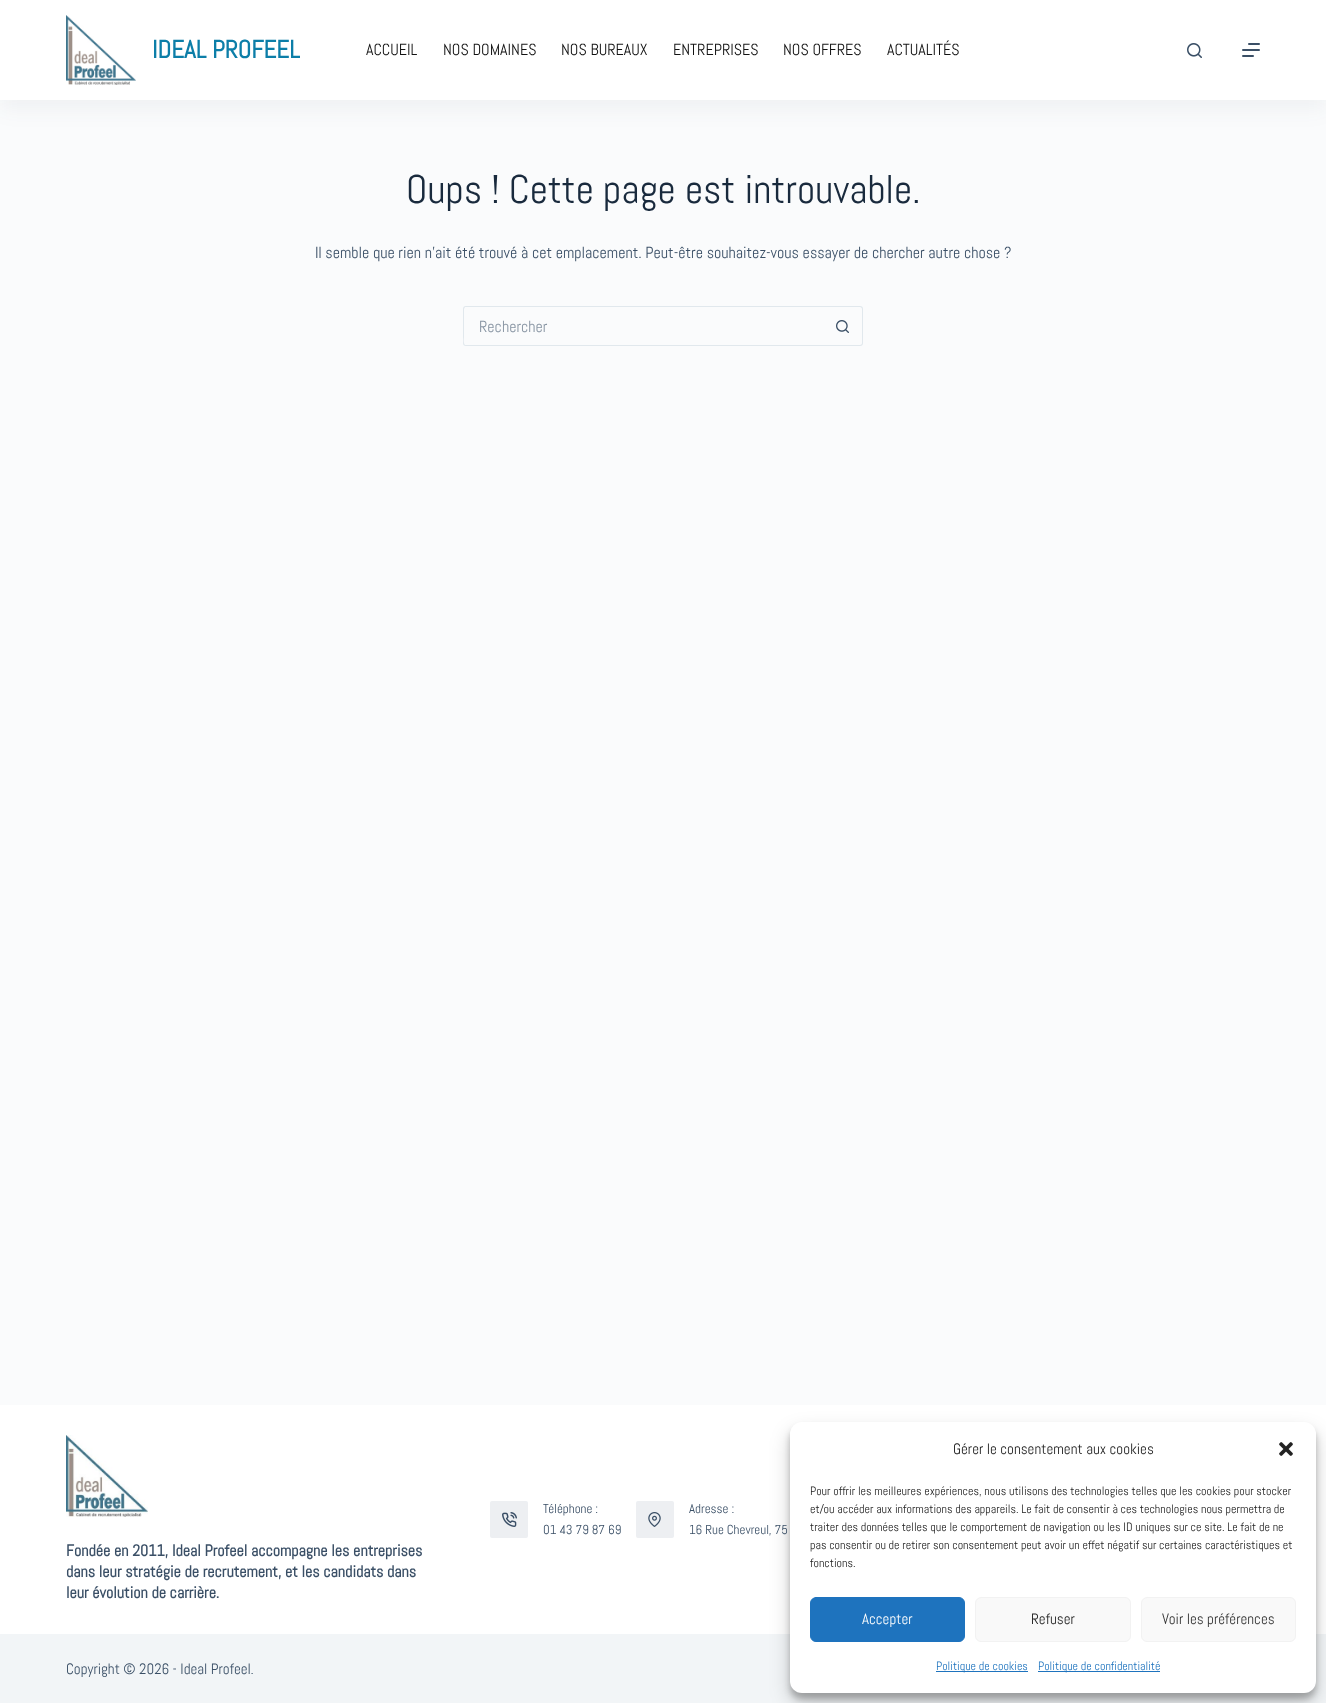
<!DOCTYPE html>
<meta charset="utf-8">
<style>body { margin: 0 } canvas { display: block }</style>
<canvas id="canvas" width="1326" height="1703"></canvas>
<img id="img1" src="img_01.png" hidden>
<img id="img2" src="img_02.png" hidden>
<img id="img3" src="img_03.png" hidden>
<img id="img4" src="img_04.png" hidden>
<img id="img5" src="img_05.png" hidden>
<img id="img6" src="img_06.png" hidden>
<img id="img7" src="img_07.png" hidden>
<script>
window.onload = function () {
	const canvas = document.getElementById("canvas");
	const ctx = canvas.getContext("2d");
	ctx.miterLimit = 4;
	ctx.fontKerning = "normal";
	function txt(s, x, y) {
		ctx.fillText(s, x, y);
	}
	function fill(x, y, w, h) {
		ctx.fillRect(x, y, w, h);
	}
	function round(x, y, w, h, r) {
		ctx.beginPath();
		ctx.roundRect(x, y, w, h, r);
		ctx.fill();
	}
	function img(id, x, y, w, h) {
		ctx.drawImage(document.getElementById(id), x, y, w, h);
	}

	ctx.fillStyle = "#FAFBFC";
	fill(0, 0, 1326, 1703);
	ctx.fillStyle = "rgba(44, 62, 80, 0.05)";
	ctx.filter = "blur(10px)";
	ctx.beginPath();
	ctx.rect(0, 10, 1326, 100);
	ctx.fill();
	ctx.filter = "none";
	ctx.fillStyle = "#FFFFFF";
	fill(0, 0, 1326, 100);
	img("img1", 66, 15, 70, 70);
	img("img2", 1187, 43, 15, 15);
	ctx.fillStyle = "#3A4F66";
	round(1248, 43, 12, 2, 1);
	round(1242, 49, 18, 2, 1);
	round(1242, 55, 12, 2, 1);
	ctx.fillStyle = "#E1E8ED";
	ctx.beginPath();
	ctx.moveTo(466, 306);
	ctx.lineTo(823, 306);
	ctx.lineTo(823, 346);
	ctx.lineTo(466, 346);
	ctx.bezierCurveTo(464, 346, 463, 345, 463, 343);
	ctx.lineTo(463, 309);
	ctx.bezierCurveTo(463, 307, 464, 306, 466, 306);
	ctx.closePath();
	ctx.moveTo(466, 307);
	ctx.lineTo(823, 307);
	ctx.lineTo(823, 345);
	ctx.lineTo(465, 345);
	ctx.bezierCurveTo(463, 343, 464, 338, 464, 337);
	ctx.lineTo(464, 309);
	ctx.lineTo(465, 307);
	ctx.closePath();
	ctx.fill("evenodd");
	ctx.beginPath();
	ctx.moveTo(823, 306);
	ctx.lineTo(860, 306);
	ctx.bezierCurveTo(862, 306, 863, 307, 863, 309);
	ctx.lineTo(863, 343);
	ctx.bezierCurveTo(863, 345, 862, 346, 860, 346);
	ctx.lineTo(823, 346);
	ctx.closePath();
	ctx.moveTo(823, 307);
	ctx.lineTo(860, 307);
	ctx.bezierCurveTo(861, 307, 862, 308, 862, 309);
	ctx.lineTo(862, 343);
	ctx.bezierCurveTo(862, 344, 861, 345, 860, 345);
	ctx.lineTo(823, 345);
	ctx.closePath();
	ctx.fill("evenodd");
	img("img3", 836, 320, 13, 13);
	ctx.beginPath();
	ctx.moveTo(837, 331.5);
	ctx.bezierCurveTo(834, 329, 833.5, 324.5, 836.5, 321);
	ctx.strokeStyle = "#FAFBFC";
	ctx.lineWidth = 1.5;
	ctx.lineCap = "round";
	ctx.stroke();
	ctx.fillStyle = "#F2F5F7";
	fill(0, 1634, 1326, 69);
	ctx.fillStyle = "#FFFFFF";
	fill(0, 1405, 1326, 229);
	ctx.fillStyle = "#EDEFF2";
	round(490, 1501, 38, 37, 2);
	img("img4", 502, 1512, 15, 15);
	round(636, 1501, 38, 37, 2);
	img("img5", 648, 1512, 13, 15);
	img("img6", 66, 1435, 82, 82);
	ctx.fillStyle = "rgba(0, 0, 0, 0.23)";
	ctx.filter = "blur(3px)";
	ctx.beginPath();
	ctx.roundRect(790, 1428, 526, 271, 12);
	ctx.fill();
	ctx.filter = "none";
	ctx.fillStyle = "rgba(0, 0, 0, 0.19)";
	ctx.filter = "blur(10px)";
	ctx.beginPath();
	ctx.roundRect(790, 1432, 526, 271, 12);
	ctx.fill();
	ctx.filter = "none";
	ctx.fillStyle = "#FFFFFF";
	round(790, 1422, 526, 271, 12);
	img("img7", 1279, 1442, 14, 14);
	ctx.fillStyle = "#1E73BE";
	ctx.beginPath();
	ctx.roundRect(810.5, 1597.5, 154, 44, 5.5);
	ctx.fill();
	ctx.strokeStyle = "#1E73BE";
	ctx.lineWidth = 1;
	ctx.stroke();
	ctx.fillStyle = "#F9F9F9";
	ctx.beginPath();
	ctx.roundRect(975.5, 1597.5, 155, 44, 5.5);
	ctx.fill();
	ctx.strokeStyle = "#F2F2F2";
	ctx.stroke();
	ctx.beginPath();
	ctx.roundRect(1141.5, 1597.5, 154, 44, 5.5);
	ctx.fill();
	ctx.stroke();
	ctx.fillStyle = "#1E73BE";
	fill(936, 1671, 92, 1);
	fill(1038, 1671, 122, 1);
	ctx.font = "bold 25px Abel";
	ctx.fillStyle = "#0C7EA8";
	txt("IDEAL PROFEEL", 152, 58);
	ctx.font = "16px Abel";
	ctx.fillStyle = "#121212";
	txt("ACCUEIL", 366, 55);
	txt("NOS DOMAINES", 443, 55);
	txt("NOS BUREAUX", 561, 55);
	txt("ENTREPRISES", 673, 55);
	txt("NOS OFFRES", 783, 55);
	txt("ACTUALITÉS", 887, 55);
	ctx.font = "40px Abel";
	ctx.fillStyle = "#192A3D";
	txt("Oups ! Cette page est introuvable.", 406, 203);
	ctx.font = "16px Abel";
	ctx.fillStyle = "#3A4F66";
	txt("Il semble que rien n’ait été trouvé à cet emplacement. Peut-être souhaitez-vous essayer de chercher autre chose ?", 315, 258);
	ctx.fillStyle = "#8794A2";
	txt("Rechercher", 479, 332);
	ctx.font = "13px Abel";
	ctx.fillStyle = "#3A4F66";
	txt("Téléphone :", 543, 1513);
	txt("01 43 79 87 69", 543, 1534);
	txt("Adresse :", 689, 1513);
	txt("16 Rue Chevreul, 75", 689, 1534);
	ctx.font = "bold 16px Abel";
	txt("Fondée en 2011, Ideal Profeel accompagne les entreprises", 66, 1556);
	txt("dans leur stratégie de recrutement, et les candidats dans", 66, 1577);
	txt("leur évolution de carrière.", 66, 1598);
	ctx.font = "15px Abel";
	txt("Copyright © 2026 - Ideal Profeel.", 66, 1674);
	ctx.fillStyle = "#222222";
	txt("Gérer le consentement aux cookies", 953, 1454);
	ctx.font = "12px Abel";
	txt("Pour offrir les meilleures expériences, nous utilisons des technologies telles que les cookies pour stocker", 810, 1495);
	txt("et/ou accéder aux informations des appareils. Le fait de consentir à ces technologies nous permettra de", 810, 1513);
	txt("traiter des données telles que le comportement de navigation ou les ID uniques sur ce site. Le fait de ne", 810, 1531);
	txt("pas consentir ou de retirer son consentement peut avoir un effet négatif sur certaines caractéristiques et", 810, 1549);
	txt("fonctions.", 810, 1567);
	ctx.font = "15px Abel";
	ctx.fillStyle = "#FFFFFF";
	txt("Accepter", 862, 1624);
	ctx.fillStyle = "#222222";
	txt("Refuser", 1031, 1624);
	ctx.fillStyle = "#333333";
	txt("Voir les préférences", 1162, 1624);
	ctx.font = "12px Abel";
	ctx.fillStyle = "#1E73BE";
	txt("Politique de cookies", 936, 1670);
	txt("Politique de confidentialité", 1038, 1670);
};
</script>
